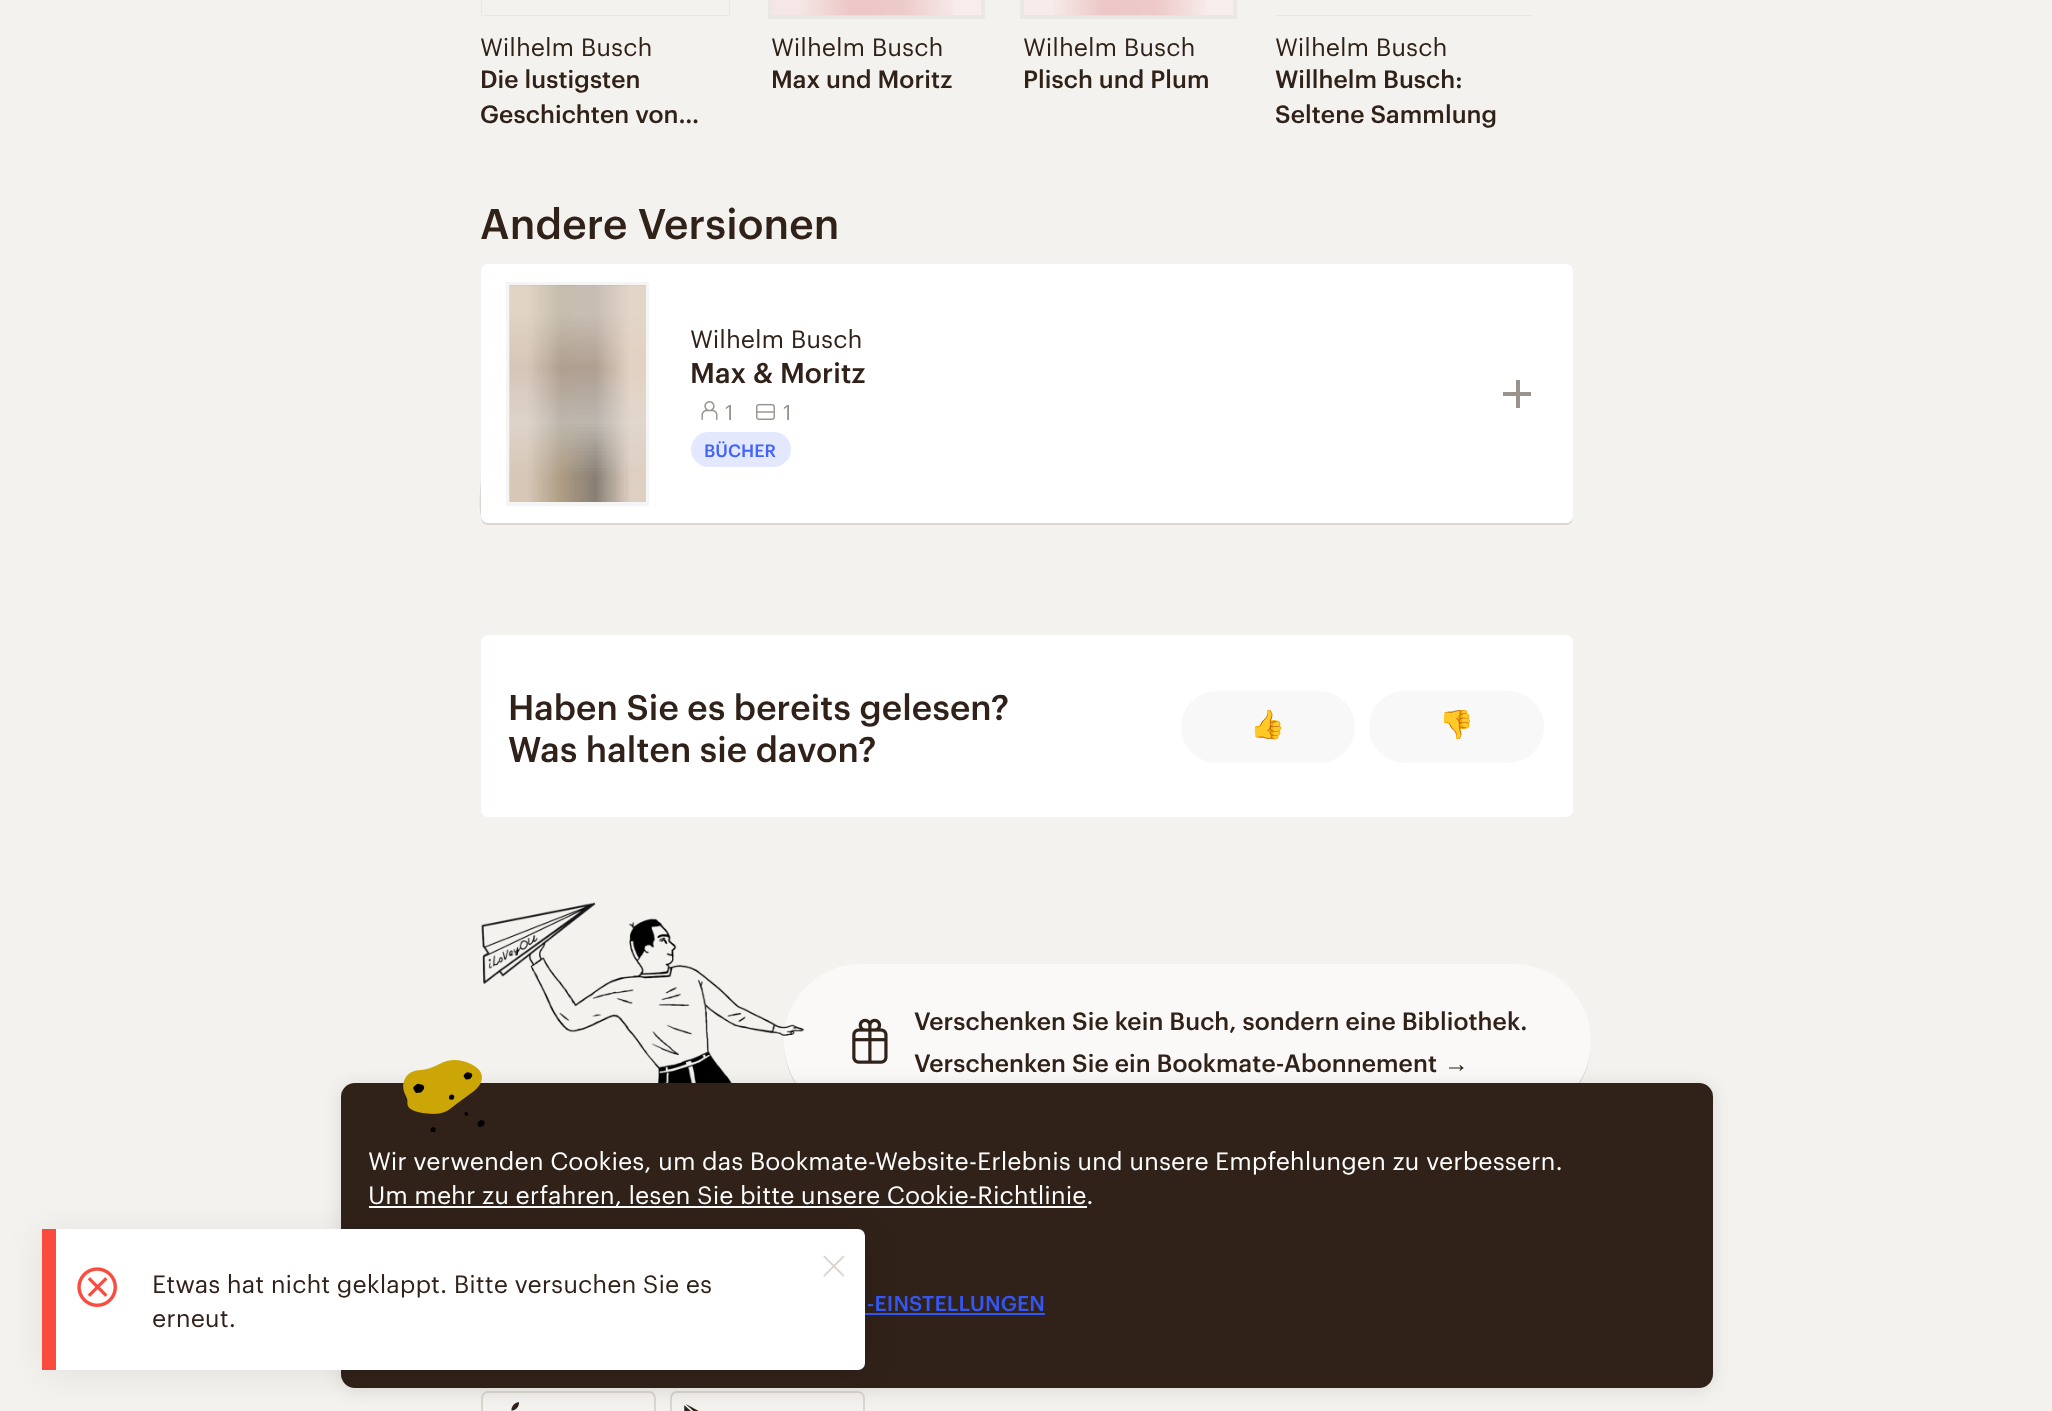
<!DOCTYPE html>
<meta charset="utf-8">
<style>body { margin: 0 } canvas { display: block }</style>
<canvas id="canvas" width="2052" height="1411"></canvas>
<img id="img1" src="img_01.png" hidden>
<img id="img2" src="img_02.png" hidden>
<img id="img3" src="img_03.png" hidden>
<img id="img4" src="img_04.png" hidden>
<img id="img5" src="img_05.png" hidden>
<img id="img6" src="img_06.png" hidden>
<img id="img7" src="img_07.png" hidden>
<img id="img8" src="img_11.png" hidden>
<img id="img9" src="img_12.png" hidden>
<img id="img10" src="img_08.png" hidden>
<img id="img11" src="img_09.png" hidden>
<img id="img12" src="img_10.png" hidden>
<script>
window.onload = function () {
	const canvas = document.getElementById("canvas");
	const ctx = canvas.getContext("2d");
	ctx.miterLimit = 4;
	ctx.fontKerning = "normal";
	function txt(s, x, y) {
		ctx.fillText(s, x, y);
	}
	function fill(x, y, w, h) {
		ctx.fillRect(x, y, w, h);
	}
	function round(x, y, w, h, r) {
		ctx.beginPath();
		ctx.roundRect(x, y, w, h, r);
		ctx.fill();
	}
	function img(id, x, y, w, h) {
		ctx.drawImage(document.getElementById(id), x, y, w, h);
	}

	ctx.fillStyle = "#F4F2EF";
	fill(0, 0, 2052, 1411);
	ctx.save();
	ctx.beginPath();
	ctx.rect(481, 0, 249, 16);
	ctx.clip();
	ctx.strokeStyle = "#EAE8E5";
	ctx.lineWidth = 4;
	ctx.strokeRect(480, -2, 251, 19);
	ctx.restore();
	img("img1", 772, 0, 209, 16);
	ctx.strokeStyle = "rgba(0, 0, 0, 0.04)";
	ctx.lineWidth = 4;
	ctx.strokeRect(770, -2, 213, 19);
	img("img2", 1024, 0, 209, 16);
	ctx.strokeRect(1022, -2, 213, 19);
	ctx.save();
	ctx.beginPath();
	ctx.rect(1276, 0, 257, 16);
	ctx.clip();
	ctx.strokeStyle = "#EAE8E5";
	ctx.strokeRect(1274, -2, 261, 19);
	ctx.restore();
	ctx.fillStyle = "#DDD6CF";
	ctx.beginPath();
	ctx.moveTo(481, 271);
	ctx.lineTo(481, 518);
	ctx.bezierCurveTo(481, 522, 484, 525, 488, 525);
	ctx.lineTo(1566, 525);
	ctx.bezierCurveTo(1570, 525, 1573, 522, 1573, 518);
	ctx.bezierCurveTo(1572, 521, 1569, 523, 1566, 523);
	ctx.lineTo(488, 523);
	ctx.bezierCurveTo(475, 523, 481, 489, 481, 475);
	ctx.closePath();
	ctx.fill();
	ctx.fillStyle = "#FFFFFF";
	round(481, 264, 1092, 259, 7);
	img("img3", 509, 285, 137, 217);
	ctx.strokeRect(508, 284, 139, 220);
	img("img4", 701, 401, 17, 19);
	img("img5", 756, 403, 19, 17);
	ctx.fillStyle = "#E3E8FF";
	round(691, 432, 100, 35, 17.5);
	ctx.fillStyle = "#9A938D";
	fill(1503, 392, 28, 4);
	fill(1516, 380, 4, 28);
	ctx.fillStyle = "#FFFFFF";
	round(481, 635, 1092, 182, 7);
	ctx.fillStyle = "#F8F8F8";
	round(1181, 691, 174, 72, 36);
	round(1369, 691, 175, 72, 36);
	ctx.fillStyle = "#DDD6CF";
	ctx.beginPath();
	ctx.moveTo(784, 1042);
	ctx.lineTo(784, 1043);
	ctx.bezierCurveTo(784, 1086, 818, 1120, 861, 1120);
	ctx.lineTo(1514, 1120);
	ctx.bezierCurveTo(1557, 1120, 1591, 1086, 1591, 1043);
	ctx.lineTo(1590, 1031);
	ctx.lineTo(1591, 1041);
	ctx.bezierCurveTo(1591, 1084, 1556, 1118, 1514, 1118);
	ctx.lineTo(861, 1118);
	ctx.bezierCurveTo(819, 1118, 784, 1084, 784, 1042);
	ctx.closePath();
	ctx.fill();
	ctx.fillStyle = "#FAF9F7";
	round(784, 964, 807, 154, 77);
	img("img6", 481, 902, 324, 181);
	img("img7", 852, 1018, 36, 46);
	ctx.beginPath();
	ctx.roundRect(482, 1392, 173, 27, 6);
	ctx.strokeStyle = "#DDD6CF";
	ctx.lineWidth = 2;
	ctx.stroke();
	img("img8", 511, 1402, 8, 9);
	ctx.beginPath();
	ctx.roundRect(671, 1392, 193, 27, 6);
	ctx.stroke();
	img("img9", 684, 1404, 15, 7);
	ctx.fillStyle = "rgba(0, 0, 0, 0.1)";
	ctx.filter = "blur(9px)";
	ctx.beginPath();
	ctx.roundRect(341, 1085, 1372, 305, 14);
	ctx.fill();
	ctx.filter = "none";
	ctx.fillStyle = "#302119";
	round(341, 1083, 1372, 305, 14);
	img("img10", 403, 1060, 82, 72);
	ctx.fillStyle = "#FFFFFF";
	fill(369, 1206, 718, 2);
	ctx.fillStyle = "#3456F3";
	fill(865, 1313, 180, 2);
	ctx.fillStyle = "rgba(0, 0, 0, 0.07)";
	ctx.filter = "blur(17.5px)";
	ctx.beginPath();
	ctx.roundRect(42, 1232, 823, 142, 7);
	ctx.fill();
	ctx.filter = "none";
	ctx.fillStyle = "#FFFFFF";
	round(42, 1229, 823, 141, 7);
	ctx.fillStyle = "#FA4C3E";
	fill(42, 1229, 14, 141);
	img("img11", 823, 1255, 22, 22);
	img("img12", 77, 1267, 40, 40);
	ctx.font = "24.5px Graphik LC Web";
	ctx.fillStyle = "#302119";
	txt("Wilhelm Busch", 480, 56);
	ctx.font = "500 24.5px Graphik LC Web";
	txt("Die lustigsten", 480, 88);
	txt("Geschichten von…", 480, 123);
	ctx.font = "24.5px Graphik LC Web";
	txt("Wilhelm Busch", 771, 56);
	ctx.font = "500 24.5px Graphik LC Web";
	txt("Max und Moritz", 771, 88);
	ctx.font = "24.5px Graphik LC Web";
	txt("Wilhelm Busch", 1023, 56);
	ctx.font = "500 24.5px Graphik LC Web";
	txt("Plisch und Plum", 1023, 88);
	ctx.font = "24.5px Graphik LC Web";
	txt("Wilhelm Busch", 1275, 56);
	ctx.font = "500 24.5px Graphik LC Web";
	txt("Willhelm Busch:", 1275, 88);
	txt("Seltene Sammlung", 1275, 123);
	ctx.font = "500 42px Graphik LC Web";
	txt("Andere Versionen", 480, 239);
	ctx.font = "24.5px Graphik LC Web";
	txt("Wilhelm Busch", 690, 348);
	ctx.font = "500 28px Graphik LC Web";
	txt("Max & Moritz", 690, 383);
	ctx.font = "21px Graphik LC Web";
	ctx.fillStyle = "#9A938D";
	txt("1", 725, 420);
	txt("1", 783, 420);
	ctx.font = "500 17.5px Graphik LC Web";
	ctx.fillStyle = "#4264FD";
	txt("BÜCHER", 704, 457);
	ctx.font = "500 35px Graphik LC Web";
	ctx.fillStyle = "#302119";
	txt("Haben Sie es bereits gelesen?", 508, 720);
	txt("Was halten sie davon?", 508, 762);
	ctx.font = "28px Noto Color Emoji";
	txt("👍", 1250, 734);
	txt("👎", 1439, 734);
	ctx.font = "500 24.5px Graphik LC Web";
	txt("Verschenken Sie kein Buch, sondern eine Bibliothek.", 914, 1030);
	txt("Verschenken Sie ein Bookmate-Abonnement", 914, 1072);
	ctx.font = "bold 24.5px Liberation Sans";
	txt("→", 1444, 1072);
	ctx.font = "24.5px Graphik LC Web";
	ctx.fillStyle = "#FFFFFF";
	txt("Wir verwenden Cookies, um das Bookmate-Website-Erlebnis und unsere Empfehlungen zu verbessern.", 368, 1170);
	txt("Um mehr zu erfahren, lesen Sie bitte unsere Cookie-Richtlinie.", 368, 1204);
	ctx.font = "500 21px Graphik LC Web";
	ctx.fillStyle = "#3456F3";
	txt("-EINSTELLUNGEN", 867, 1311);
	ctx.font = "24.5px Graphik LC Web";
	ctx.fillStyle = "#302119";
	txt("Etwas hat nicht geklappt. Bitte versuchen Sie es", 152, 1293);
	txt("erneut.", 152, 1327);
};
</script>
